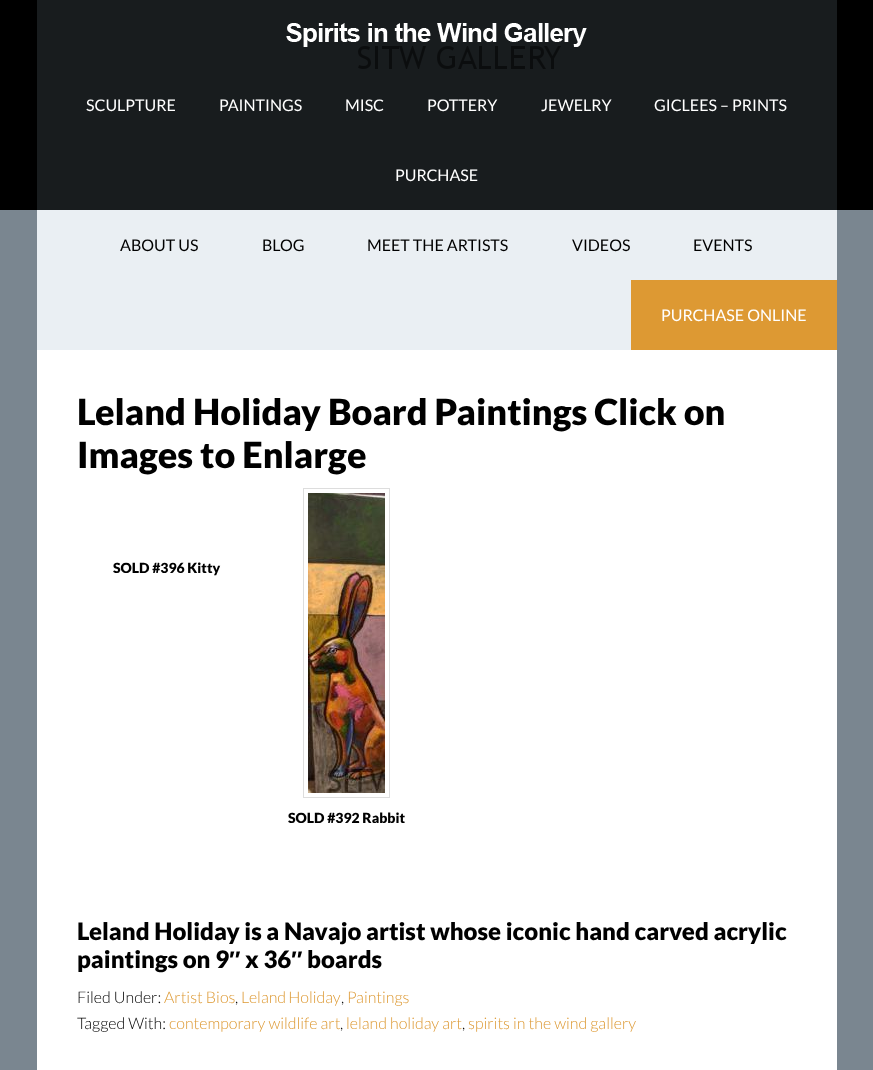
<!DOCTYPE html>
<meta charset="utf-8">
<style>body { margin: 0 } canvas { display: block }</style>
<canvas id="canvas" width="873" height="1070"></canvas>
<img id="img1" src="img_01.png" hidden>
<img id="img2" src="img_02.png" hidden>
<script>
window.onload = function () {
	const canvas = document.getElementById("canvas");
	const ctx = canvas.getContext("2d");
	ctx.miterLimit = 4;
	ctx.fontKerning = "normal";
	function txt(s, x, y) {
		ctx.fillText(s, x, y);
	}
	function fill(x, y, w, h) {
		ctx.fillRect(x, y, w, h);
	}
	function img(id, x, y, w, h) {
		ctx.drawImage(document.getElementById(id), x, y, w, h);
	}

	ctx.fillStyle = "#7A8690";
	fill(0, 0, 873, 1070);
	ctx.fillStyle = "#000000";
	fill(0, 0, 873, 210);
	ctx.fillStyle = "#181C1E";
	fill(37, 0, 800, 210);
	img("img1", 286, 23, 301, 46);
	ctx.fillStyle = "#FFFFFF";
	fill(37, 350, 800, 720);
	ctx.fillStyle = "#EAEFF3";
	fill(37, 210, 800, 140);
	ctx.fillStyle = "#DD9933";
	fill(631, 280, 206, 70);
	ctx.strokeStyle = "#DDDDDD";
	ctx.strokeRect(303.5, 488.5, 86, 309);
	img("img2", 308, 493, 77, 300);
	ctx.font = "16px Lato";
	ctx.fillStyle = "#FFFFFF";
	txt("SCULPTURE", 86, 111);
	txt("PAINTINGS", 219, 111);
	txt("MISC", 345, 111);
	txt("POTTERY", 427, 111);
	txt("JEWELRY", 541, 111);
	txt("GICLEES – PRINTS", 654, 111);
	txt("PURCHASE", 395, 181);
	ctx.fillStyle = "#000000";
	txt("ABOUT US", 120, 251);
	txt("BLOG", 262, 251);
	txt("MEET THE ARTISTS", 367, 251);
	txt("VIDEOS", 572, 251);
	txt("EVENTS", 693, 251);
	ctx.fillStyle = "#FFFFFF";
	txt("PURCHASE ONLINE", 661, 321);
	ctx.font = "900 36px Lato";
	ctx.fillStyle = "#000000";
	txt("Leland Holiday Board Paintings Click on", 77, 425);
	txt("Images to Enlarge", 77, 468);
	ctx.font = "900 14px Lato";
	txt("SOLD #396 Kitty", 113, 573);
	txt("SOLD #392 Rabbit", 288, 823);
	ctx.font = "900 24px Lato";
	txt("Leland Holiday is a Navajo artist whose iconic hand carved acrylic", 77, 940);
	txt("paintings on 9", 77, 968);
	ctx.font = "bold 24px Liberation Sans";
	txt("″", 229, 968);
	ctx.font = "900 24px Lato";
	txt("x 36", 245, 968);
	ctx.font = "bold 24px Liberation Sans";
	txt("″", 291, 968);
	ctx.font = "900 24px Lato";
	txt("boards", 307, 968);
	ctx.font = "300 16px Lato";
	txt("Filed Under:", 77, 1003);
	ctx.fillStyle = "#DD9933";
	txt("Artist Bios", 164, 1003);
	ctx.fillStyle = "#000000";
	txt(",", 235, 1003);
	ctx.wordSpacing = "-1px";
	ctx.fillStyle = "#DD9933";
	txt("Leland Holiday", 241, 1003);
	ctx.wordSpacing = "0px";
	ctx.fillStyle = "#000000";
	txt(",", 341, 1003);
	ctx.fillStyle = "#DD9933";
	txt("Paintings", 347, 1003);
	ctx.fillStyle = "#000000";
	txt("Tagged With:", 77, 1029);
	ctx.fillStyle = "#DD9933";
	txt("contemporary wildlife art", 169, 1029);
	ctx.fillStyle = "#000000";
	txt(",", 340, 1029);
	ctx.fillStyle = "#DD9933";
	txt("leland holiday art", 346, 1029);
	ctx.fillStyle = "#000000";
	txt(",", 462, 1029);
	ctx.fillStyle = "#DD9933";
	txt("spirits in the wind gallery", 468, 1029);
};
</script>
